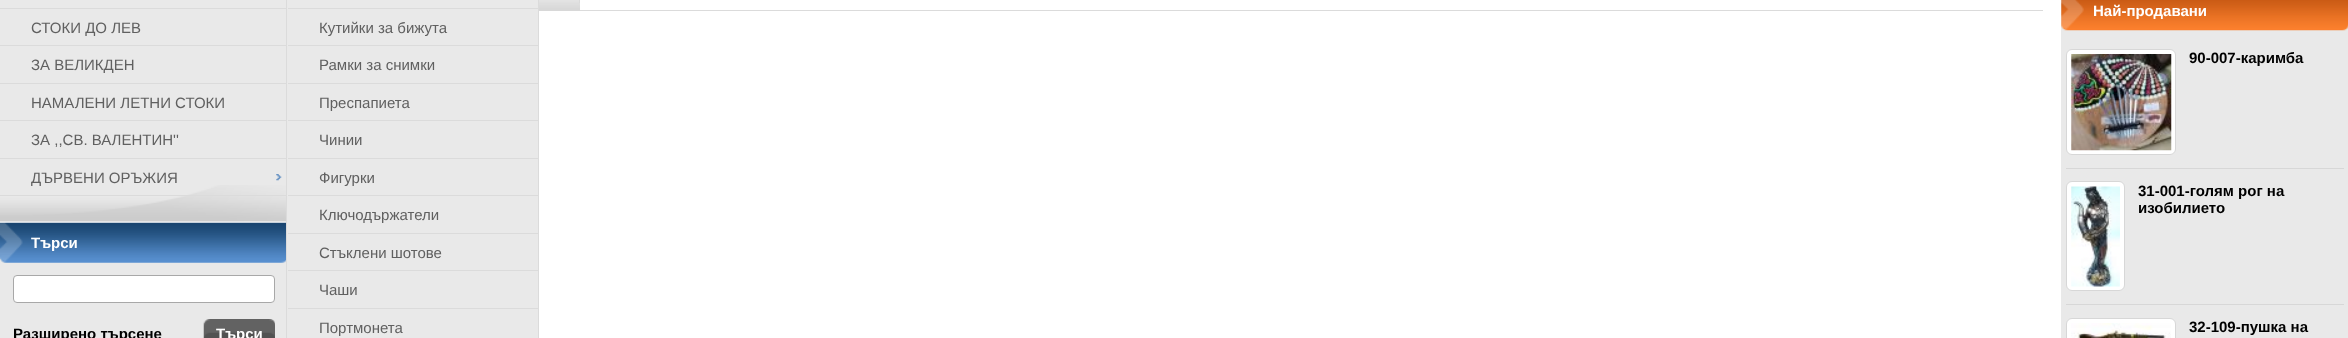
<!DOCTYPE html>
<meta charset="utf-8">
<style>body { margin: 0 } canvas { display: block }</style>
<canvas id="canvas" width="2348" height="338"></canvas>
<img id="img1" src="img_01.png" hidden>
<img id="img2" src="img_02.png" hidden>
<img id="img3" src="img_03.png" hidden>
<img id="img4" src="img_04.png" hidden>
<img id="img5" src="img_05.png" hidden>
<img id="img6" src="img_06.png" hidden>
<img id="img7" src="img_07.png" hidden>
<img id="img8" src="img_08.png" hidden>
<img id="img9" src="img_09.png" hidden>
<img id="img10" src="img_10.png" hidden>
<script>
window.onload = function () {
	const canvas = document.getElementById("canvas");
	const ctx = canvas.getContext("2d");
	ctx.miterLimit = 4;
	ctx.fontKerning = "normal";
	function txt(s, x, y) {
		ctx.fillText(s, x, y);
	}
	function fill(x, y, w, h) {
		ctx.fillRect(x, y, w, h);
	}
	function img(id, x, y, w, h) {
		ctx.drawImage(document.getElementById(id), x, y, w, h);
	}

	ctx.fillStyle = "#FFFFFF";
	fill(0, 0, 2348, 338);
	ctx.fillStyle = "#E9E9E9";
	fill(0, 0, 286, 185);
	img("img1", 0, 185, 286, 37);
	ctx.fillStyle = "#DBDBDB";
	fill(0, 45, 288, 1);
	fill(0, 8, 288, 1);
	fill(0, 83, 288, 1);
	fill(0, 120, 288, 1);
	fill(0, 158, 288, 1);
	fill(0, 195, 288, 1);
	ctx.fillStyle = "#E9E9E9";
	fill(287, 0, 251, 338);
	ctx.fillStyle = "#DBDBDB";
	fill(538, 0, 1, 338);
	fill(286, 0, 1, 338);
	fill(288, 8, 250, 1);
	fill(288, 45, 250, 1);
	fill(288, 83, 250, 1);
	fill(288, 120, 250, 1);
	fill(288, 158, 250, 1);
	fill(288, 195, 250, 1);
	fill(288, 233, 250, 1);
	fill(288, 270, 250, 1);
	fill(288, 308, 250, 1);
	img("img2", 276, 174, 6, 7);
	ctx.fillStyle = "#E9E9E9";
	fill(0, 262, 286, 76);
	img("img3", 0, 222, 286, 41);
	ctx.fillStyle = "#FFFFFF";
	ctx.beginPath();
	ctx.roundRect(13.5, 275.5, 261, 27, 3.5);
	ctx.fill();
	ctx.strokeStyle = "#A8A8A8";
	ctx.stroke();
	img("img4", 203, 319, 65, 19);
	img("img5", 268, 319, 7, 19);
	ctx.fillStyle = "#DBDBDB";
	fill(580, 10, 1463, 1);
	ctx.fillStyle = "#D8D8D8";
	fill(539, 10, 41, 1);
	img("img6", 539, 0, 41, 10);
	ctx.fillStyle = "#DADADA";
	fill(579, 0, 1, 3);
	ctx.fillStyle = "#E9E9E9";
	fill(2061, 0, 287, 338);
	img("img7", 2061, 0, 287, 31);
	ctx.fillStyle = "#D7D7D7";
	fill(2066, 168, 278, 1);
	ctx.fillStyle = "#FFFFFF";
	ctx.beginPath();
	ctx.roundRect(2066.5, 49.5, 109, 105, 5.5);
	ctx.fill();
	ctx.strokeStyle = "#D7D7D7";
	ctx.stroke();
	img("img8", 2071, 54, 101, 97);
	ctx.fillStyle = "#D7D7D7";
	fill(2066, 304, 278, 1);
	ctx.fillStyle = "#FFFFFF";
	ctx.beginPath();
	ctx.roundRect(2066.5, 181.5, 58, 109, 5.5);
	ctx.fill();
	ctx.stroke();
	img("img9", 2071, 186, 49, 101);
	ctx.beginPath();
	ctx.roundRect(2066.5, 318.5, 109, 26, 5.5);
	ctx.fill();
	ctx.stroke();
	img("img10", 2071, 323, 100, 15);
	ctx.font = "15px Liberation Sans";
	ctx.fillStyle = "#606060";
	txt("СТОКИ ДО ЛЕВ", 31, 33);
	txt("Кутийки за бижута", 319, 33);
	txt("Рамки за снимки", 319, 70);
	txt("Преспапиета", 319, 108);
	txt("Чинии", 319, 145);
	txt("Фигурки", 319, 183);
	txt("Ключодържатели", 319, 220);
	txt("Стъклени шотове", 319, 258);
	txt("Чаши", 319, 295);
	txt("Портмонета", 319, 333);
	txt("ЗА ВЕЛИКДЕН", 31, 70);
	txt("НАМАЛЕНИ ЛЕТНИ СТОКИ", 31, 108);
	txt("ЗА ,,СВ. ВАЛЕНТИН''", 31, 145);
	txt("ДЪРВЕНИ ОРЪЖИЯ", 31, 183);
	ctx.font = "bold 15px Liberation Sans";
	ctx.fillStyle = "#FFFFFF";
	txt("Търси", 31, 248);
	ctx.fillStyle = "#000000";
	txt("Разширено търсене", 13, 339);
	ctx.fillStyle = "#FFFFFF";
	txt("Търси", 216, 339);
	txt("Най-продавани", 2093, 16);
	ctx.fillStyle = "#000000";
	txt("90-007-каримба", 2189, 63);
	txt("31-001-голям рог на", 2138, 196);
	txt("изобилието", 2138, 213);
	txt("32-109-пушка на", 2189, 332);
};
</script>
